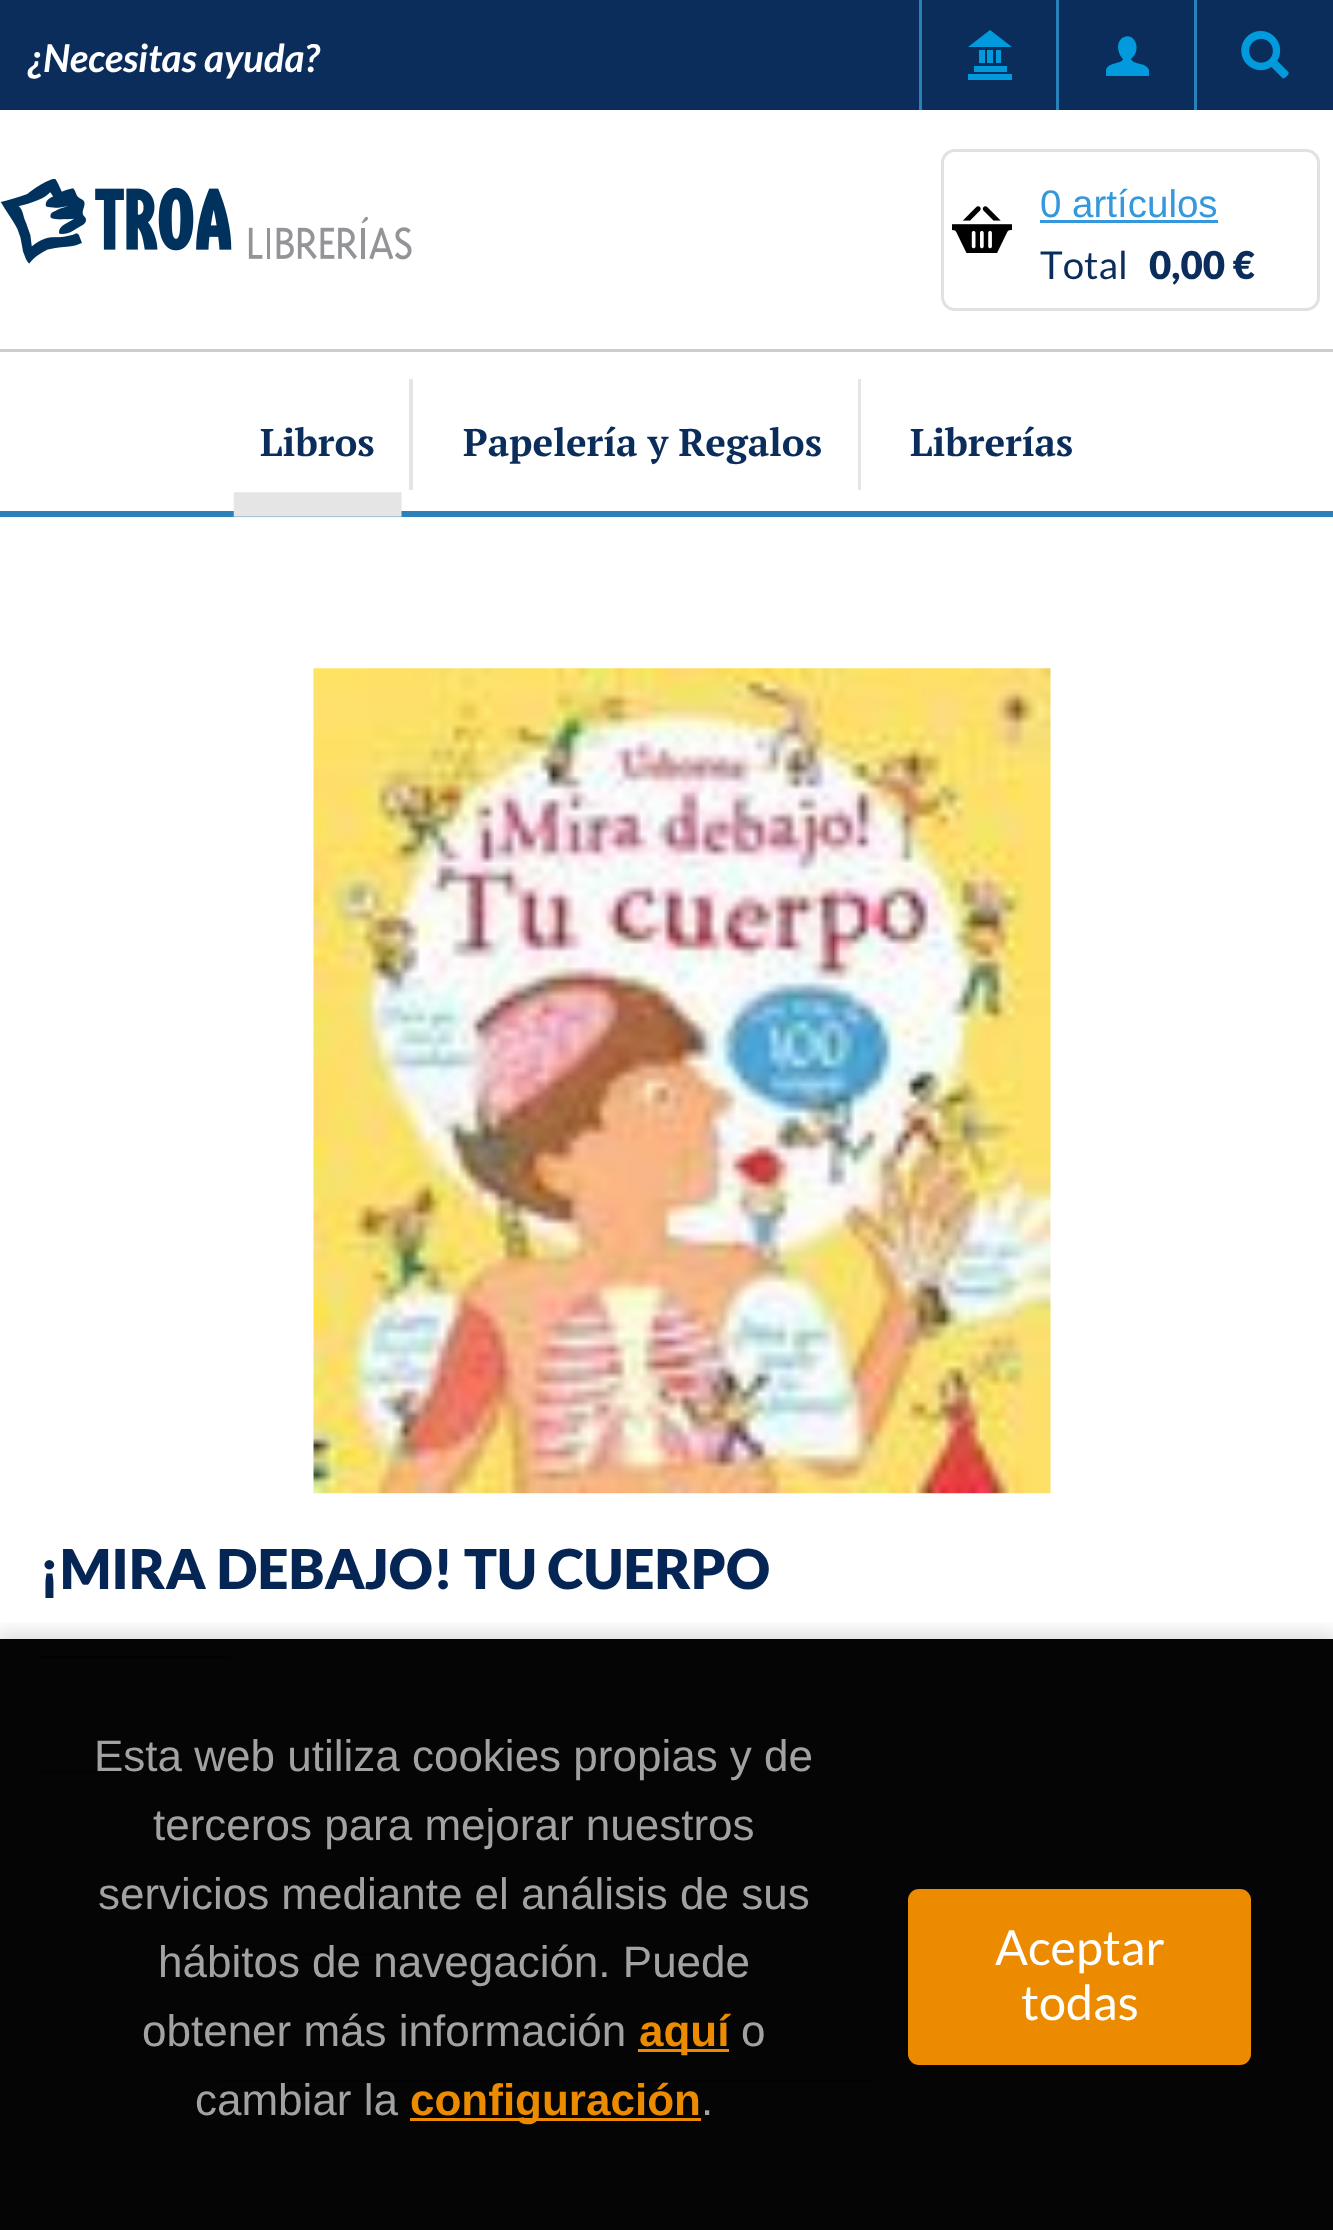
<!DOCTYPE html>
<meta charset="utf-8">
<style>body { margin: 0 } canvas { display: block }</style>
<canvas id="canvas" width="1333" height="2230"></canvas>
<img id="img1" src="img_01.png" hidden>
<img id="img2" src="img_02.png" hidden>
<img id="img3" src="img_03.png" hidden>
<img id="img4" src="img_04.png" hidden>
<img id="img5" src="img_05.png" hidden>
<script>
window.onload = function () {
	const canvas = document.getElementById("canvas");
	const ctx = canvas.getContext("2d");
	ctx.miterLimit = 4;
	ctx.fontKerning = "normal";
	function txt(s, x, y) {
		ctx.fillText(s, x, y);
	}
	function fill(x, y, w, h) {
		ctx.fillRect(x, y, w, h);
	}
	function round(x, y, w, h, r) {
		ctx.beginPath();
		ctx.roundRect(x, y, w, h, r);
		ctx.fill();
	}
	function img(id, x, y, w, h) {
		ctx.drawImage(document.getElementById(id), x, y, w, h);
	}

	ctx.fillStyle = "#FFFFFF";
	fill(0, 0, 1333, 2230);
	ctx.fillStyle = "#0A2D5B";
	fill(0, 0, 1333, 110);
	ctx.fillStyle = "#009ADD";
	fill(968, 74, 44, 6);
	fill(974, 66, 33, 6);
	fill(979, 50, 6, 13);
	fill(987, 50, 6, 13);
	fill(996, 50, 5, 13);
	ctx.beginPath();
	ctx.moveTo(990, 30);
	ctx.lineTo(968, 47);
	ctx.lineTo(1012, 47);
	ctx.closePath();
	ctx.fill("evenodd");
	ctx.fillStyle = "#2A80B9";
	fill(919, 0, 3, 110);
	ctx.fillStyle = "#009ADD";
	ctx.beginPath();
	ctx.moveTo(1123, 59);
	ctx.lineTo(1122, 58);
	ctx.bezierCurveTo(1118, 53, 1116, 44, 1121, 39);
	ctx.bezierCurveTo(1132, 29, 1144, 48, 1131, 59);
	ctx.bezierCurveTo(1133, 65, 1146, 62, 1149, 70);
	ctx.lineTo(1149, 76);
	ctx.lineTo(1106, 76);
	ctx.lineTo(1106, 70);
	ctx.bezierCurveTo(1108, 62, 1122, 64, 1123, 59);
	ctx.closePath();
	ctx.fill("evenodd");
	ctx.fillStyle = "#2A80B9";
	fill(1056, 0, 3, 110);
	img("img1", 1241, 31, 48, 48);
	fill(1194, 0, 3, 110);
	img("img2", 0, 179, 412, 85);
	img("img3", 952, 206, 60, 47);
	ctx.beginPath();
	ctx.roundRect(942.5, 150.5, 376, 159, 12.5);
	ctx.strokeStyle = "#E1E1E1";
	ctx.lineWidth = 3;
	ctx.stroke();
	ctx.fillStyle = "#3598DC";
	fill(1040, 220, 178, 3);
	ctx.fillStyle = "#2C81B8";
	fill(0, 511, 1333, 6);
	ctx.fillStyle = "#CCCCCC";
	fill(0, 349, 1333, 3);
	ctx.fillStyle = "#E5E5E5";
	fill(409, 379, 4, 111);
	img("img4", 233, 492, 169, 26);
	fill(858, 379, 3, 111);
	img("img5", 313, 668, 738, 826);
	ctx.fillStyle = "#666666";
	fill(39, 1656, 192, 3);
	ctx.fillStyle = "#999999";
	fill(39, 1771, 126, 3);
	ctx.fillStyle = "#3598DC";
	fill(228, 1953, 182, 3);
	fill(217, 2079, 655, 3);
	ctx.save();
	ctx.beginPath();
	ctx.rect(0, 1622, 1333, 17);
	ctx.clip();
	ctx.fillStyle = "rgba(0, 0, 0, 0.15)";
	ctx.filter = "blur(11px)";
	ctx.beginPath();
	ctx.rect(-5, 1634, 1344, 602);
	ctx.fill();
	ctx.filter = "none";
	ctx.restore();
	ctx.fillStyle = "rgba(0, 0, 0, 0.98)";
	fill(0, 1639, 1333, 591);
	ctx.fillStyle = "#ED8B00";
	fill(638, 2049, 91, 3);
	fill(410, 2118, 291, 3);
	round(908, 1889, 343, 176, 11);
	ctx.font = "italic bold 38.5px Lato";
	ctx.fillStyle = "#FFFFFF";
	txt("¿Necesitas ayuda?", 28, 72);
	ctx.font = "38.5px Liberation Sans";
	ctx.fillStyle = "#3598DC";
	txt("0 artículos", 1040, 217);
	ctx.font = "38.5px Lato";
	ctx.fillStyle = "#0A2D5B";
	txt("Total", 1040, 279);
	ctx.font = "900 38.5px Lato";
	txt("0,00 €", 1149, 279);
	ctx.font = "bold 38.5px PT Serif";
	txt("Libros", 260, 456);
	txt("Papelería y Regalos", 463, 456);
	txt("Librerías", 910, 456);
	ctx.font = "900 55px Lato";
	ctx.fillStyle = "#052555";
	txt("¡MIRA DEBAJO! TU CUERPO", 39, 1589);
	ctx.font = "44px Liberation Sans";
	ctx.fillStyle = "#A2A2A2";
	txt("Esta web utiliza cookies propias y de", 94, 1771);
	txt("terceros para mejorar nuestros", 153, 1840);
	txt("servicios mediante el análisis de sus", 98, 1909);
	txt("hábitos de navegación. Puede", 158, 1977);
	txt("obtener más información", 142, 2046);
	ctx.font = "bold 44px Liberation Sans";
	ctx.fillStyle = "#ED8B00";
	txt("aquí", 639, 2046);
	ctx.font = "44px Liberation Sans";
	ctx.fillStyle = "#A2A2A2";
	txt("o", 741, 2046);
	txt("cambiar la", 195, 2115);
	ctx.font = "bold 44px Liberation Sans";
	ctx.fillStyle = "#ED8B00";
	txt("configuración", 410, 2115);
	ctx.font = "44px Liberation Sans";
	ctx.fillStyle = "#A2A2A2";
	txt(".", 701, 2115);
	ctx.font = "48.5px Lato";
	ctx.fillStyle = "#FFFFFF";
	txt("Aceptar", 995, 1965);
	txt("todas", 1021, 2020);
};
</script>
